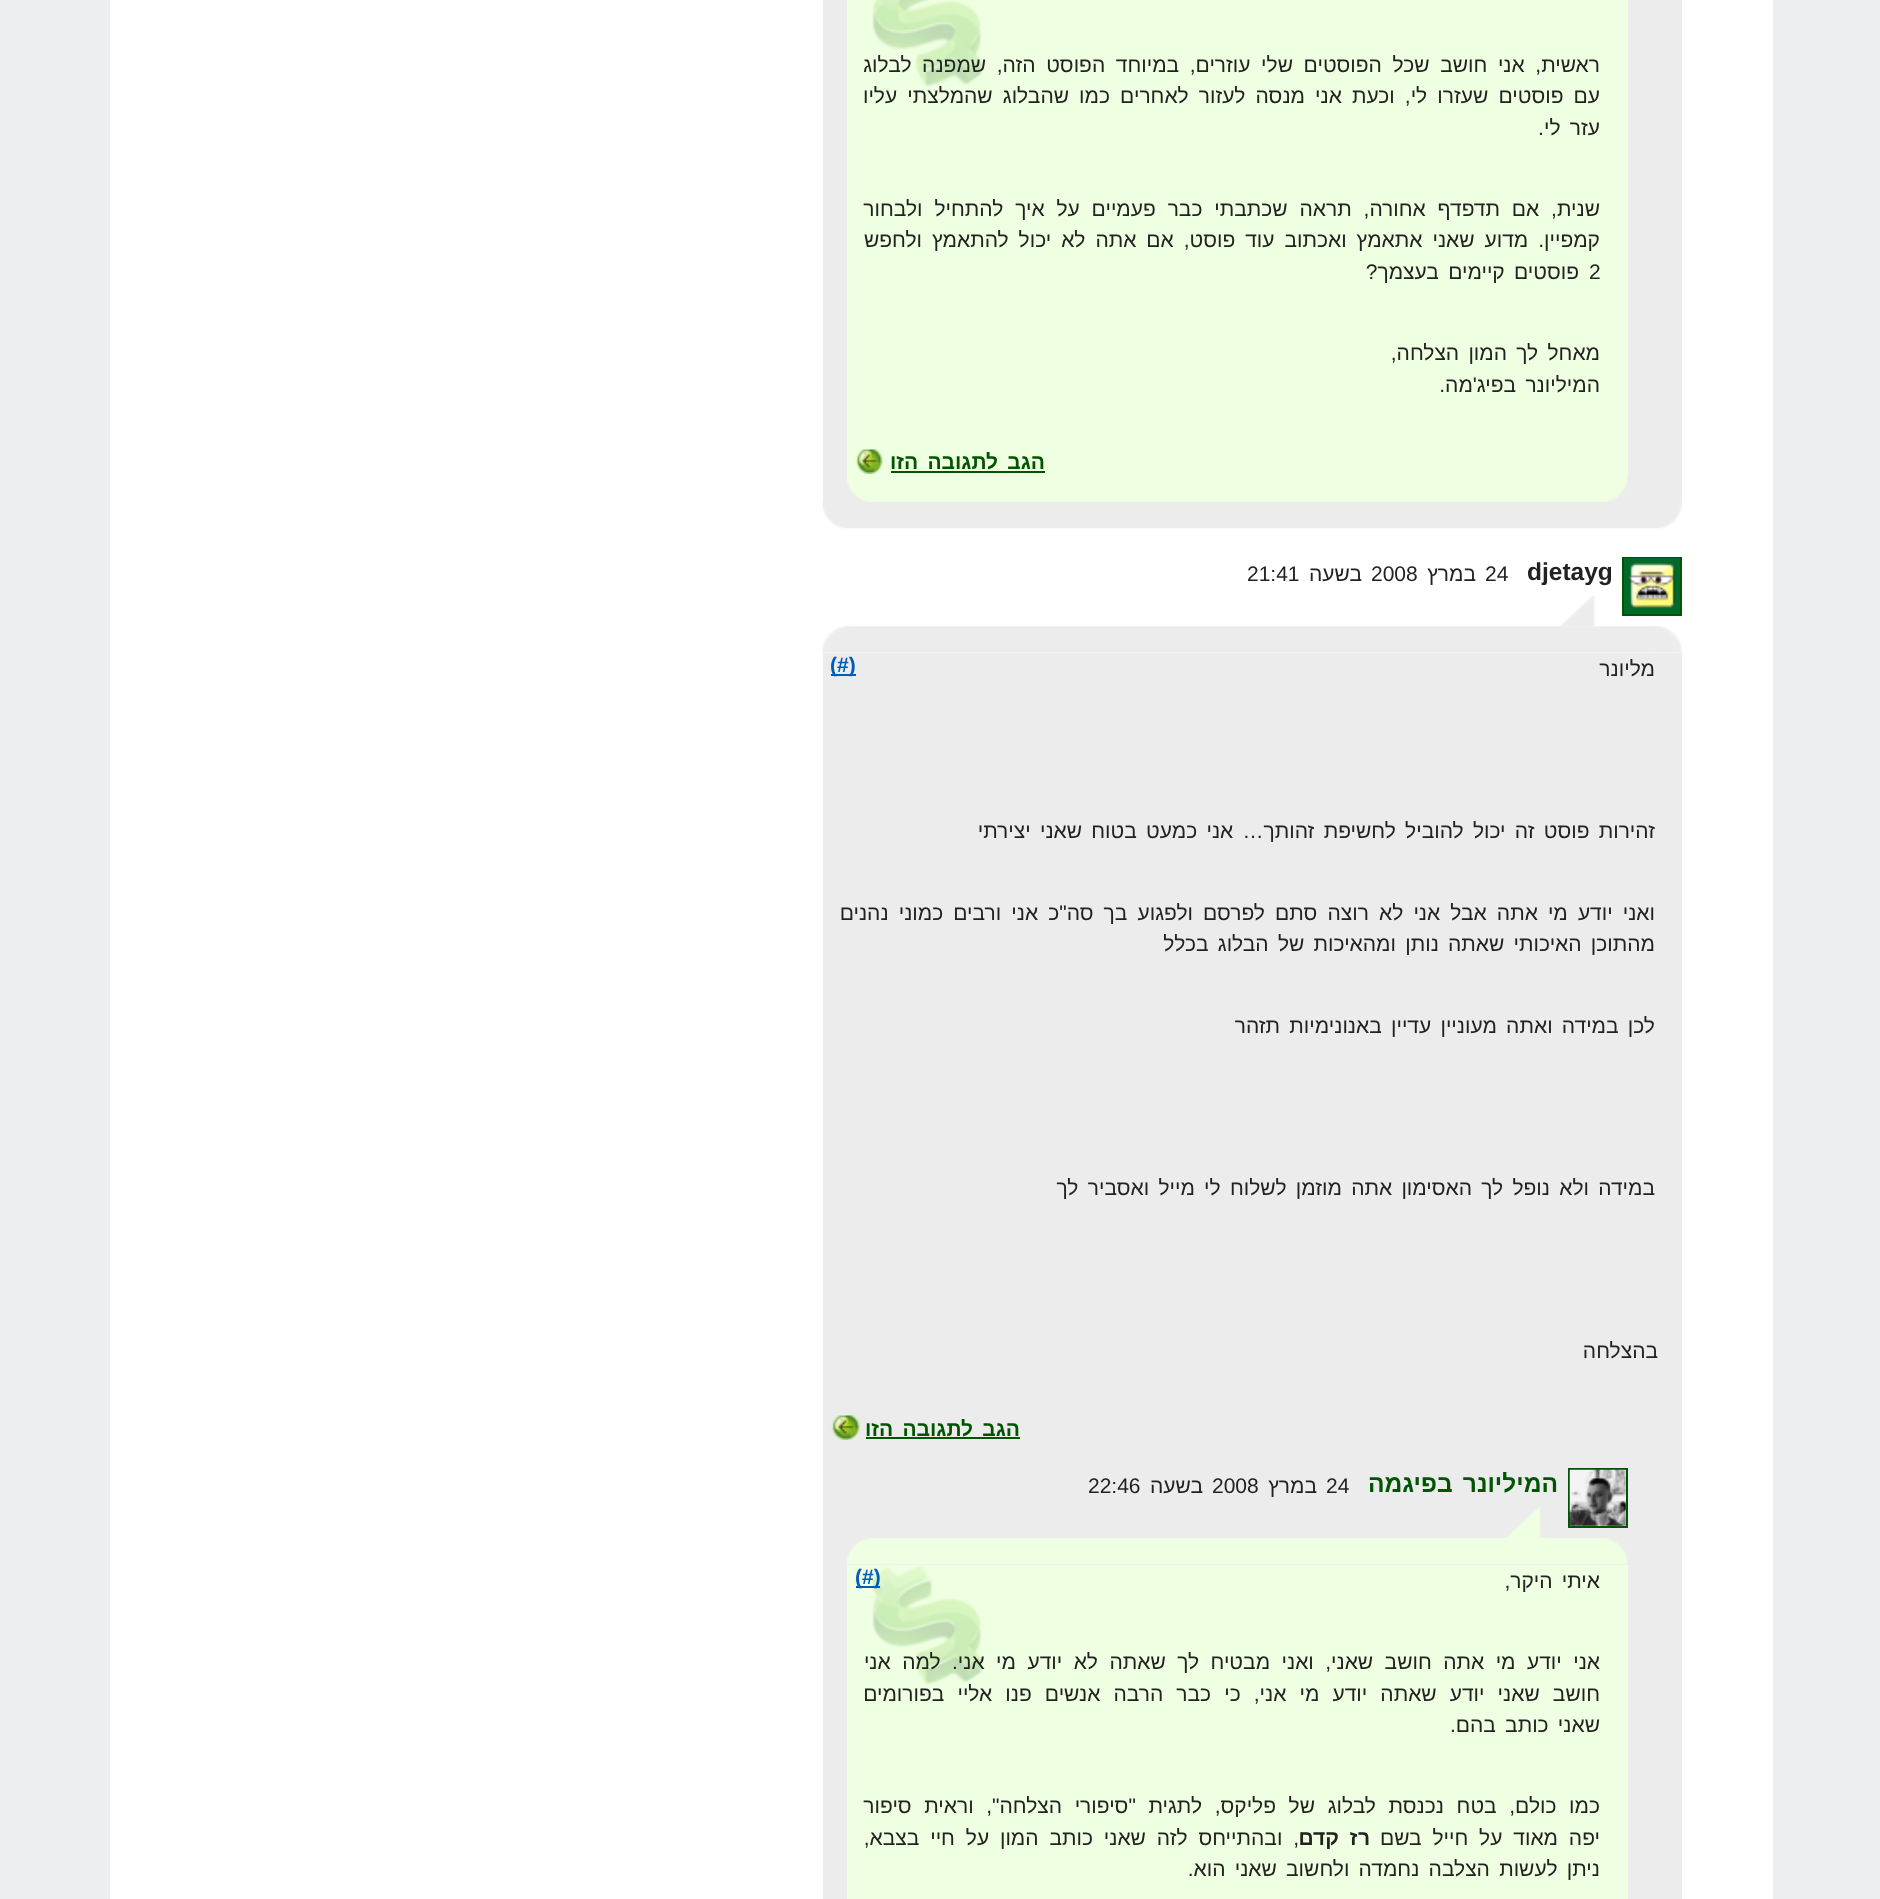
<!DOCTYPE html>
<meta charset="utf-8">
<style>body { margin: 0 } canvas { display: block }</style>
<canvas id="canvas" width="1880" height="1899"></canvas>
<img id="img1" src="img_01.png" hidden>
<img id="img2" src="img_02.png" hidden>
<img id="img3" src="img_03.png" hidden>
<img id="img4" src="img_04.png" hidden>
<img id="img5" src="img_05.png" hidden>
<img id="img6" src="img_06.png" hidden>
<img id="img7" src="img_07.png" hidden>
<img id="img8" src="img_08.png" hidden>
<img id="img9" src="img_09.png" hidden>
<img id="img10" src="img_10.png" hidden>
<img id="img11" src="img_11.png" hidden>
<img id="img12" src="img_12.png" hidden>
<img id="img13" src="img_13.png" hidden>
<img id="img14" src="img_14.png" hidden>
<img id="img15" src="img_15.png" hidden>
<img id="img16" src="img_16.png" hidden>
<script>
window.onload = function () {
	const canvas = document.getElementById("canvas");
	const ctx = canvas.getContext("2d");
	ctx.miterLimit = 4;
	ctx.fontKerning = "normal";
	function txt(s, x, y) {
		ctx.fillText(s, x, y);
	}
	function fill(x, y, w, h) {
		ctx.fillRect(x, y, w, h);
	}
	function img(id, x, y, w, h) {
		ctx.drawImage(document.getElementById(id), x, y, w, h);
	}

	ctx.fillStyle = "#EDEEEF";
	fill(0, 0, 1880, 1899);
	ctx.fillStyle = "#FFFFFF";
	fill(110, 0, 1663, 1899);
	ctx.fillStyle = "#ECECEC";
	fill(823, 0, 859, 502);
	ctx.fillStyle = "#EFFFE1";
	fill(847, 0, 781, 476);
	img("img1", 872, 0, 110, 87);
	img("img2", 855, 449, 28, 25);
	ctx.fillStyle = "#005500";
	fill(891, 471, 154, 2);
	img("img3", 1600, 476, 28, 26);
	img("img4", 847, 476, 753, 26);
	img("img5", 1653, 502, 29, 27);
	img("img6", 822, 502, 832, 27);
	img("img7", 1560, 595, 35, 32);
	ctx.strokeStyle = "#005500";
	ctx.lineWidth = 2;
	ctx.strokeRect(1623, 558, 58, 57);
	img("img8", 1624, 558, 56, 56);
	img("img9", 1653, 626, 29, 27);
	img("img10", 822, 626, 833, 27);
	ctx.fillStyle = "#ECECEC";
	fill(823, 653, 859, 1246);
	ctx.fillStyle = "#005CBB";
	fill(831, 674, 25, 2);
	img("img11", 831, 1415, 29, 25);
	ctx.fillStyle = "#005500";
	fill(866, 1437, 154, 2);
	img("img12", 1506, 1506, 35, 32);
	ctx.fillStyle = "#FFFFFF";
	ctx.beginPath();
	ctx.rect(1569, 1469, 58, 58);
	ctx.fill();
	ctx.stroke();
	img("img13", 1569, 1469, 57, 57);
	img("img14", 1599, 1538, 29, 27);
	img("img15", 847, 1538, 753, 27);
	ctx.fillStyle = "#EFFFE1";
	fill(847, 1565, 781, 334);
	img("img16", 872, 1566, 110, 119);
	ctx.fillStyle = "#005CBB";
	fill(856, 1586, 24, 2);
	ctx.wordSpacing = "4.75px";
	ctx.direction = "rtl";
	ctx.font = "21px Liberation Sans";
	ctx.fillStyle = "#222222";
	txt("ראשית, אני חושב שכל הפוסטים שלי עוזרים, במיוחד הפוסט הזה, שמפנה לבלוג", 1600, 72);
	ctx.wordSpacing = "4.25px";
	txt("עם פוסטים שעזרו לי, וכעת אני מנסה לעזור לאחרים כמו שהבלוג שהמלצתי עליו", 1600, 103);
	ctx.wordSpacing = "3.4px";
	txt("עזר לי.", 1600, 135);
	ctx.wordSpacing = "6px";
	txt("שנית, אם תדפדף אחורה, תראה שכתבתי כבר פעמיים על איך להתחיל ולבחור", 1600, 216);
	ctx.wordSpacing = "4.1px";
	txt("קמפיין. מדוע שאני אתאמץ ואכתוב עוד פוסט, אם אתה לא יכול להתאמץ ולחפש", 1600, 247);
	ctx.wordSpacing = "0px";
	ctx.direction = "ltr";
	txt("2", 1589, 279);
	ctx.wordSpacing = "3.4px";
	ctx.direction = "rtl";
	txt("פוסטים קיימים בעצמך?", 1579, 279);
	txt("מאחל לך המון הצלחה,", 1600, 360);
	txt("המיליונר בפיג'מה.", 1600, 392);
	ctx.font = "bold 21px Liberation Sans";
	ctx.fillStyle = "#005500";
	txt("הגב לתגובה הזו", 1045, 469);
	ctx.wordSpacing = "0px";
	ctx.direction = "ltr";
	ctx.font = "bold 24.5px Liberation Sans";
	ctx.fillStyle = "#222222";
	txt("djetayg", 1527, 580);
	ctx.font = "21px Liberation Sans";
	txt("24", 1485, 581);
	ctx.direction = "rtl";
	txt("במרץ", 1476, 581);
	ctx.direction = "ltr";
	txt("2008", 1371, 581);
	ctx.direction = "rtl";
	txt("בשעה", 1362, 581);
	ctx.direction = "ltr";
	txt("21:41", 1247, 581);
	ctx.direction = "rtl";
	txt("מליונר", 1655, 676);
	ctx.direction = "ltr";
	ctx.font = "bold 21px Liberation Sans";
	ctx.fillStyle = "#005CBB";
	txt("(#)", 830, 672);
	ctx.wordSpacing = "3.4px";
	ctx.direction = "rtl";
	ctx.font = "21px Liberation Sans";
	ctx.fillStyle = "#222222";
	txt("זהירות פוסט זה יכול להוביל לחשיפת זהותך… אני כמעט בטוח שאני יצירתי", 1655, 838);
	ctx.wordSpacing = "4.25px";
	txt("ואני יודע מי אתה אבל אני לא רוצה סתם לפרסם ולפגוע בך סה\"כ אני ורבים כמוני נהנים", 1655, 920);
	ctx.wordSpacing = "3.4px";
	txt("מהתוכן האיכותי שאתה נותן ומהאיכות של הבלוג בכלל", 1655, 951);
	txt("לכן במידה ואתה מעוניין עדיין באנונימיות תזהר", 1655, 1033);
	txt("במידה ולא נופל לך האסימון אתה מוזמן לשלוח לי מייל ואסביר לך", 1655, 1195);
	ctx.wordSpacing = "0px";
	txt("בהצלחה", 1658, 1358);
	ctx.wordSpacing = "3.4px";
	ctx.font = "bold 21px Liberation Sans";
	ctx.fillStyle = "#005500";
	txt("הגב לתגובה הזו", 1020, 1436);
	ctx.font = "bold 24.5px Liberation Sans";
	txt("המיליונר בפיגמה", 1558, 1492);
	ctx.wordSpacing = "0px";
	ctx.direction = "ltr";
	ctx.font = "21px Liberation Sans";
	ctx.fillStyle = "#222222";
	txt("24", 1326, 1493);
	ctx.direction = "rtl";
	txt("במרץ", 1317, 1493);
	ctx.direction = "ltr";
	txt("2008", 1212, 1493);
	ctx.direction = "rtl";
	txt("בשעה", 1203, 1493);
	ctx.direction = "ltr";
	txt("22:46", 1088, 1493);
	ctx.wordSpacing = "3.4px";
	ctx.direction = "rtl";
	txt("איתי היקר,", 1600, 1588);
	ctx.wordSpacing = "0px";
	ctx.direction = "ltr";
	ctx.font = "bold 21px Liberation Sans";
	ctx.fillStyle = "#005CBB";
	txt("(#)", 855, 1584);
	ctx.wordSpacing = "5.6px";
	ctx.direction = "rtl";
	ctx.font = "21px Liberation Sans";
	ctx.fillStyle = "#222222";
	txt("אני יודע מי אתה חושב שאני, ואני מבטיח לך שאתה לא יודע מי אני. למה אני", 1600, 1669);
	ctx.wordSpacing = "7.25px";
	txt("חושב שאני יודע שאתה יודע מי אני, כי כבר הרבה אנשים פנו אליי בפורומים", 1600, 1701);
	ctx.wordSpacing = "3.4px";
	txt("שאני כותב בהם.", 1600, 1732);
	ctx.wordSpacing = "6.75px";
	txt("כמו כולם, בטח נכנסת לבלוג של פליקס, לתגית \"סיפורי הצלחה\", וראית סיפור", 1600, 1813);
	ctx.wordSpacing = "5px";
	txt("יפה מאוד על חייל בשם", 1600, 1845);
	ctx.font = "bold 21px Liberation Sans";
	txt("רז קדם", 1370, 1845);
	ctx.font = "21px Liberation Sans";
	txt(", ובהתייחס לזה שאני כותב המון על חיי בצבא,", 1299, 1845);
	ctx.wordSpacing = "3.4px";
	txt("ניתן לעשות הצלבה נחמדה ולחשוב שאני הוא.", 1600, 1876);
};
</script>
